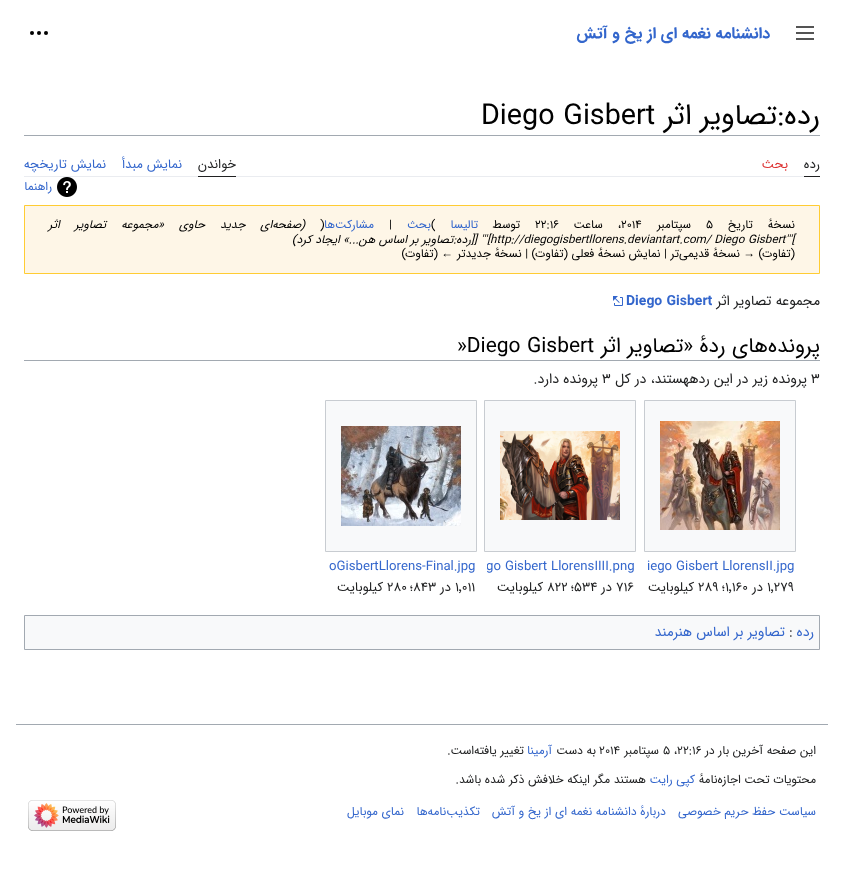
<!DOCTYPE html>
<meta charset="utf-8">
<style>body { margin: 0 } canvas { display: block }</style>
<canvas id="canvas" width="844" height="891"></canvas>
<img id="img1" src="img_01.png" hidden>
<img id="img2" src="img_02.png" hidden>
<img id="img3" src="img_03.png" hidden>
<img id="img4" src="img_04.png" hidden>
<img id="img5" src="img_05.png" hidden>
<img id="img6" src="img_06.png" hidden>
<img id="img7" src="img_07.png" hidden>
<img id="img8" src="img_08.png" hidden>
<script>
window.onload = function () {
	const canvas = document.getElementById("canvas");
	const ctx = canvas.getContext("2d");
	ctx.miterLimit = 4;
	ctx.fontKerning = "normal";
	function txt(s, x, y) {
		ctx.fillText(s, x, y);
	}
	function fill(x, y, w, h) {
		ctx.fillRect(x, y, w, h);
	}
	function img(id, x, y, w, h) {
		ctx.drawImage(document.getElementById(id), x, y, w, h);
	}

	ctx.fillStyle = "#FFFFFF";
	fill(0, 0, 844, 891);
	img("img1", 796, 26, 18, 14);
	img("img2", 30, 31, 18, 4);
	ctx.fillStyle = "#A2A9B1";
	fill(24, 135, 796, 1);
	ctx.fillStyle = "#EAECF0";
	fill(24, 176, 780, 1);
	ctx.fillStyle = "#202122";
	fill(804, 176, 16, 1);
	fill(198, 176, 38, 1);
	img("img3", 57, 177, 20, 20);
	ctx.fillStyle = "#FEF6E7";
	ctx.beginPath();
	ctx.rect(24.5, 205.5, 795, 68);
	ctx.fill();
	ctx.strokeStyle = "#FFCC33";
	ctx.stroke();
	img("img4", 613, 296, 10, 10);
	ctx.fillStyle = "#A2A9B1";
	fill(24, 360, 796, 1);
	ctx.fillStyle = "#F8F9FA";
	ctx.beginPath();
	ctx.rect(644.5, 400.5, 151, 151);
	ctx.fill();
	ctx.strokeStyle = "#C8CCD1";
	ctx.stroke();
	img("img5", 660, 421, 120, 109);
	ctx.beginPath();
	ctx.rect(484.5, 400.5, 151, 151);
	ctx.fill();
	ctx.stroke();
	img("img6", 500, 431, 120, 89);
	ctx.beginPath();
	ctx.rect(325.5, 400.5, 151, 151);
	ctx.fill();
	ctx.stroke();
	img("img7", 341, 426, 120, 100);
	ctx.beginPath();
	ctx.rect(24.5, 615.5, 795, 34);
	ctx.fill();
	ctx.strokeStyle = "#A2A9B1";
	ctx.stroke();
	ctx.fillStyle = "#A2A9B1";
	fill(16, 724, 812, 1);
	img("img8", 28, 800, 88, 31);
	ctx.direction = "rtl";
	ctx.font = "bold 16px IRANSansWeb";
	ctx.fillStyle = "#3366CC";
	txt("دانشنامه نغمه ای از یخ و آتش", 770, 38);
	ctx.font = "28.75px IRANSansWeb";
	ctx.fillStyle = "#000000";
	txt("رده", 820, 124);
	ctx.direction = "ltr";
	txt(":", 777, 124);
	ctx.direction = "rtl";
	txt("تصاویر اثر", 777, 124);
	ctx.direction = "ltr";
	txt("Diego Gisbert", 481, 124);
	ctx.direction = "rtl";
	ctx.font = "13px IRANSansWeb";
	ctx.fillStyle = "#202122";
	txt("رده", 820, 168);
	ctx.fillStyle = "#DD3333";
	txt("بحث", 788, 168);
	ctx.fillStyle = "#202122";
	txt("خواندن", 236, 168);
	ctx.fillStyle = "#3366CC";
	txt("نمایش مبدأ", 182, 168);
	txt("نمایش تاریخچه", 106, 168);
	ctx.font = "12px IRANSansWeb";
	txt("راهنما", 52, 190);
	ctx.wordSpacing = "11.5px";
	ctx.font = "11.75px IRANSansWeb";
	ctx.fillStyle = "#000000";
	txt("نسخهٔ تاریخ ", 795, 228);
	ctx.wordSpacing = "0px";
	ctx.direction = "ltr";
	txt("۵", 706, 228);
	ctx.direction = "rtl";
	txt("سپتامبر", 691, 228);
	ctx.direction = "ltr";
	txt("۲۰۱۴", 621, 228);
	ctx.wordSpacing = "11.5px";
	ctx.direction = "rtl";
	txt("، ساعت", 621, 228);
	ctx.wordSpacing = "0px";
	ctx.direction = "ltr";
	txt("۲۲:۱۶", 535, 228);
	ctx.direction = "rtl";
	txt("توسط", 520, 228);
	ctx.fillStyle = "#3366CC";
	txt("تالیسا", 478, 228);
	ctx.direction = "ltr";
	ctx.fillStyle = "#000000";
	txt("(", 431, 228);
	ctx.direction = "rtl";
	ctx.fillStyle = "#3366CC";
	txt("بحث", 431, 228);
	ctx.direction = "ltr";
	ctx.fillStyle = "#000000";
	txt("|", 389, 228);
	ctx.direction = "rtl";
	ctx.fillStyle = "#3366CC";
	txt("مشارکت‌ها", 374, 228);
	ctx.direction = "ltr";
	ctx.fillStyle = "#000000";
	txt(")", 320, 228);
	ctx.wordSpacing = "11.5px";
	ctx.direction = "rtl";
	ctx.font = "italic 11.75px IRANSansWeb";
	txt("(صفحه‌ای جدید حاوی «مجموعه تصاویر اثر", 305, 228);
	ctx.wordSpacing = "0px";
	txt("]''' [[رده:تصاویر بر اساس هن...» ایجاد کرد)", 490, 243);
	ctx.direction = "ltr";
	txt("http://diegogisbertllorens.deviantart.com/ Diego Gisbert'''[", 490, 243);
	ctx.direction = "rtl";
	ctx.font = "11.75px IRANSansWeb";
	txt("(تفاوت)", 795, 257);
	ctx.font = "11.75px Liberation Serif";
	txt("→", 755, 257);
	ctx.font = "11.75px IRANSansWeb";
	txt("نسخهٔ قدیمی‌تر | نمایش نسخهٔ فعلی (تفاوت) | نسخهٔ جدیدتر", 740, 257);
	ctx.font = "11.75px Liberation Serif";
	txt("←", 453, 257);
	ctx.font = "11.75px IRANSansWeb";
	txt("(تفاوت)", 438, 257);
	ctx.font = "14px IRANSansWeb";
	ctx.fillStyle = "#202122";
	txt("مجموعه تصاویر اثر", 820, 305);
	ctx.direction = "ltr";
	ctx.font = "bold 14px IRANSansWeb";
	ctx.fillStyle = "#3366CC";
	txt("Diego Gisbert", 626, 305);
	ctx.direction = "rtl";
	ctx.font = "21px IRANSansWeb";
	ctx.fillStyle = "#000000";
	txt("پرونده‌های ردهٔ «تصاویر اثر", 820, 352);
	ctx.direction = "ltr";
	txt("»Diego Gisbert", 457, 352);
	ctx.font = "14px IRANSansWeb";
	ctx.fillStyle = "#202122";
	txt("۳", 811, 383);
	ctx.direction = "rtl";
	txt("پرونده‌ زیر در این ردههستند، در کل", 807, 383);
	ctx.direction = "ltr";
	txt("۳", 602, 383);
	ctx.direction = "rtl";
	txt("پرونده دارد.", 598, 383);
	ctx.direction = "ltr";
	ctx.font = "13.2px IRANSansWeb";
	ctx.fillStyle = "#3366CC";
	txt("iego Gisbert LlorensII.jpg", 647, 570);
	ctx.fillStyle = "#202122";
	txt("۱٬۲۷۹", 767, 591);
	ctx.direction = "rtl";
	txt("در", 763, 591);
	ctx.direction = "ltr";
	txt("۱٬۱۶۰", 725, 591);
	ctx.direction = "rtl";
	txt("؛", 725, 591);
	ctx.direction = "ltr";
	txt("۲۸۹", 698, 591);
	ctx.direction = "rtl";
	txt("کیلوبایت", 694, 591);
	ctx.save();
	ctx.beginPath();
	ctx.rect(487, 556, 147, 21);
	ctx.clip();
	ctx.direction = "ltr";
	ctx.fillStyle = "#3366CC";
	txt("go Gisbert LlorensIIII.png", 486, 570);
	ctx.restore();
	ctx.direction = "ltr";
	txt("۷۱۶", 616, 591);
	ctx.direction = "rtl";
	txt("در", 612, 591);
	ctx.direction = "ltr";
	txt("۵۳۴", 574, 591);
	ctx.direction = "rtl";
	txt("؛", 574, 591);
	ctx.direction = "ltr";
	txt("۸۲۲", 547, 591);
	ctx.direction = "rtl";
	txt("کیلوبایت", 543, 591);
	ctx.direction = "ltr";
	ctx.fillStyle = "#3366CC";
	txt("oGisbertLlorens-Final.jpg", 329, 570);
	ctx.fillStyle = "#202122";
	txt("۱٬۰۱۱", 455, 591);
	ctx.direction = "rtl";
	txt("در", 451, 591);
	ctx.direction = "ltr";
	txt("۸۴۳", 413, 591);
	ctx.direction = "rtl";
	txt("؛", 413, 591);
	ctx.direction = "ltr";
	txt("۲۸۰", 387, 591);
	ctx.direction = "rtl";
	txt("کیلوبایت", 383, 591);
	ctx.font = "14px IRANSansWeb";
	ctx.fillStyle = "#3366CC";
	txt("رده", 814, 636);
	ctx.direction = "ltr";
	ctx.fillStyle = "#202122";
	txt(":", 789, 636);
	ctx.direction = "rtl";
	ctx.fillStyle = "#3366CC";
	txt("تصاویر بر اساس هنرمند", 785, 636);
	ctx.font = "12px IRANSansWeb";
	ctx.fillStyle = "#202122";
	txt("این صفحه آخرین بار در ", 816, 754);
	ctx.direction = "ltr";
	txt("۲۲:۱۶", 677, 754);
	ctx.direction = "rtl";
	txt("، ", 677, 754);
	ctx.direction = "ltr";
	txt("۵", 663, 754);
	ctx.direction = "rtl";
	txt("سپتامبر", 659, 754);
	ctx.direction = "ltr";
	txt("۲۰۱۴", 599, 754);
	ctx.direction = "rtl";
	txt("به دست", 596, 754);
	ctx.fillStyle = "#3366CC";
	txt("آرمینا", 552, 754);
	ctx.fillStyle = "#202122";
	txt("تغییر یافته‌است.", 524, 754);
	txt("محتویات تحت اجازه‌نامهٔ", 816, 783);
	ctx.fillStyle = "#3366CC";
	txt("کپی رایت", 695, 783);
	ctx.fillStyle = "#202122";
	txt("هستند مگر اینکه خلافش ذکر شده باشد.", 646, 783);
	ctx.fillStyle = "#3366CC";
	txt("سیاست حفظ حریم خصوصی", 816, 815);
	txt("دربارهٔ دانشنامه نغمه ای از یخ و آتش", 666, 815);
	txt("تکذیب‌نامه‌ها", 480, 815);
	txt("نمای موبایل", 404, 815);
};
</script>
